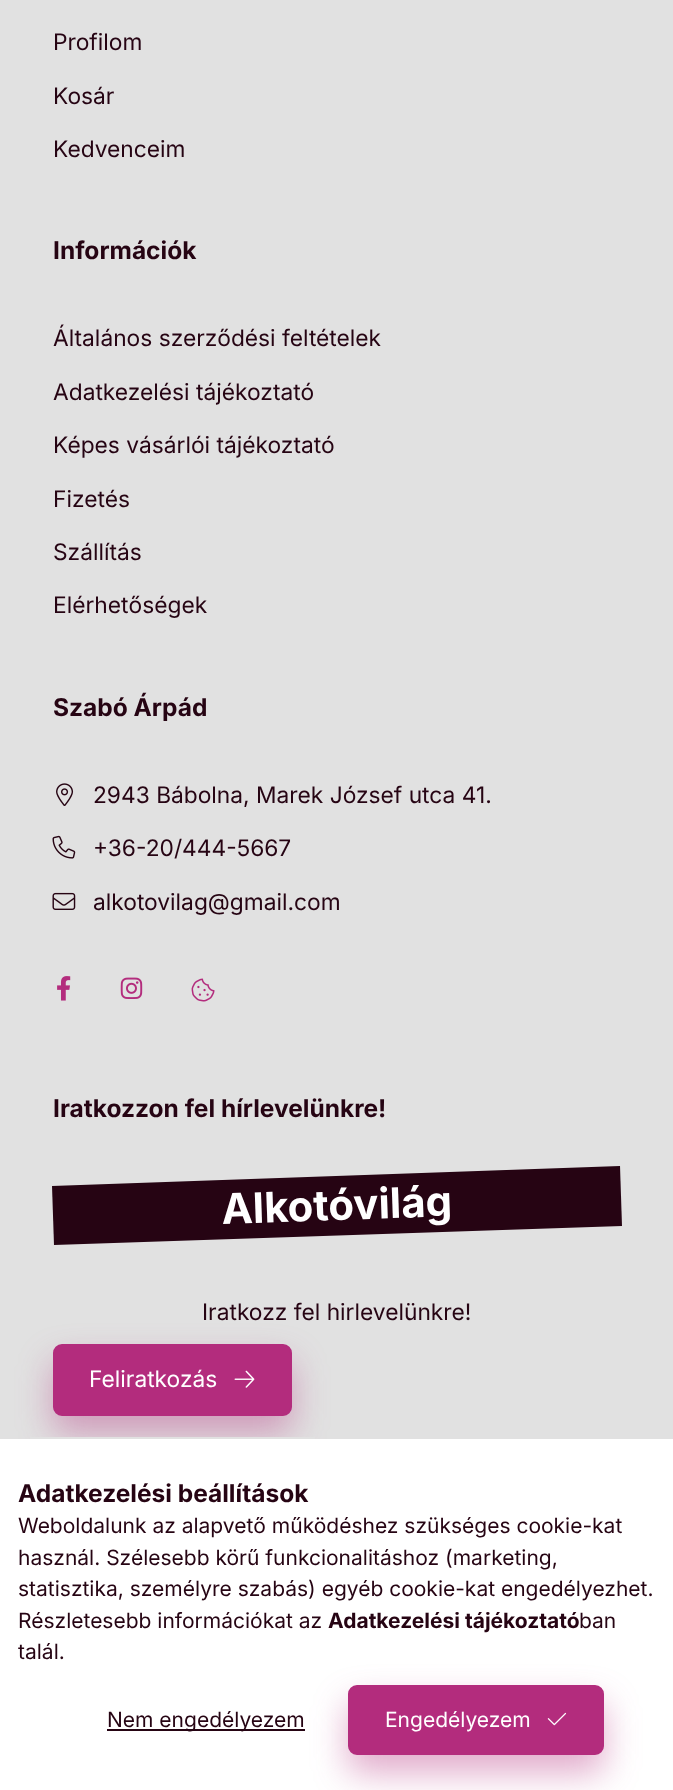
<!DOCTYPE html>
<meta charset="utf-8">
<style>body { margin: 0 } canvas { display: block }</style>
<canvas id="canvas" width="673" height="1790"></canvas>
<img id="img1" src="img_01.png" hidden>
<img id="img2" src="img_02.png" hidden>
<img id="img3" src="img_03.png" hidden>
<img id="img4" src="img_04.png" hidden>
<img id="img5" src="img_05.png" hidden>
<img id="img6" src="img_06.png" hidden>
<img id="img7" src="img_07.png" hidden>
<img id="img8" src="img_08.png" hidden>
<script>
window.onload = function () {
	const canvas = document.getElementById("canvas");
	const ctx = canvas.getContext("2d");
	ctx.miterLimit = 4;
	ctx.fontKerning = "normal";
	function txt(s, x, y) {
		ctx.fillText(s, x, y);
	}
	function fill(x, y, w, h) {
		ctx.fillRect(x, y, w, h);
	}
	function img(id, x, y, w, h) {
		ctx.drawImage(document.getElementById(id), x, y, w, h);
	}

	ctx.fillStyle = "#E1E1E1";
	fill(0, 0, 673, 1790);
	img("img1", 56, 783, 18, 23);
	img("img2", 52, 835, 24, 24);
	img("img3", 52, 892, 24, 18);
	img("img4", 57, 976, 14, 25);
	img("img5", 120, 977, 23, 22);
	img("img6", 191, 978, 24, 24);
	ctx.fillStyle = "#260413";
	ctx.beginPath();
	ctx.moveTo(52, 1186);
	ctx.lineTo(620, 1166);
	ctx.lineTo(622, 1226);
	ctx.lineTo(54, 1245);
	ctx.closePath();
	ctx.fill();
	ctx.fillStyle = "rgba(179, 44, 125, 0.4)";
	ctx.filter = "blur(17.5px)";
	ctx.beginPath();
	ctx.roundRect(53, 1362, 239, 71, 9);
	ctx.fill();
	ctx.filter = "none";
	ctx.fillStyle = "#B32C7D";
	ctx.beginPath();
	ctx.roundRect(54, 1345, 237, 70, 8);
	ctx.fill();
	ctx.strokeStyle = "#B32C7D";
	ctx.lineWidth = 2;
	ctx.stroke();
	img("img7", 234, 1370, 21, 18);
	ctx.fillStyle = "#FFFFFF";
	fill(0, 1439, 673, 351);
	ctx.fillStyle = "#E1E1E1";
	fill(30, 1437, 285, 2);
	ctx.fillStyle = "#260413";
	fill(107, 1729, 198, 2);
	ctx.fillStyle = "rgba(179, 44, 125, 0.4)";
	ctx.filter = "blur(17.5px)";
	ctx.beginPath();
	ctx.roundRect(348, 1703, 256, 70, 9);
	ctx.fill();
	ctx.filter = "none";
	ctx.fillStyle = "#B32C7D";
	ctx.beginPath();
	ctx.roundRect(349, 1686, 254, 68, 8);
	ctx.fill();
	ctx.stroke();
	img("img8", 547, 1712, 20, 14);
	ctx.font = "22.75px Inter";
	ctx.fillStyle = "#260413";
	txt("Profilom", 53, 50);
	txt("Kosár", 53, 104);
	txt("Kedvenceim", 53, 157);
	ctx.font = "bold 24.5px Inter";
	txt("Információk", 53, 259);
	ctx.font = "22.75px Inter";
	txt("Általános szerződési feltételek", 53, 346);
	txt("Adatkezelési tájékoztató", 53, 400);
	txt("Képes vásárlói tájékoztató", 53, 453);
	txt("Fizetés", 53, 507);
	txt("Szállítás", 53, 560);
	txt("Elérhetőségek", 53, 613);
	ctx.font = "bold 24.5px Inter";
	txt("Szabó Árpád", 53, 716);
	ctx.font = "22.75px Inter";
	txt("2943 Bábolna, Marek József utca 41.", 93, 803);
	txt("+36-20/444-5667", 93, 856);
	txt("alkotovilag@gmail.com", 93, 910);
	ctx.font = "bold 24.5px Inter";
	txt("Iratkozzon fel hírlevelünkre!", 53, 1117);
	ctx.font = "bold 42px Inter";
	ctx.fillStyle = "#FFFFFF";
	ctx.save();
	ctx.translate(222, 1224);
	ctx.rotate(-2 * Math.PI / 180);
	ctx.fillText("Alkotóvilág", 0, 0);
	ctx.restore();
	ctx.font = "22.75px Inter";
	ctx.fillStyle = "#260413";
	txt("Iratkozz fel hirlevelünkre!", 202, 1320);
	ctx.fillStyle = "#FFFFFF";
	txt("Feliratkozás", 89, 1387);
	ctx.font = "bold 24.5px Inter";
	ctx.fillStyle = "#260413";
	txt("Adatkezelési beállítások", 18, 1502);
	ctx.font = "21px Inter";
	txt("Weboldalunk az alapvető működéshez szükséges cookie-kat", 18, 1533);
	txt("használ. Szélesebb körű funkcionalitáshoz (marketing,", 18, 1565);
	txt("statisztika, személyre szabás) egyéb cookie-kat engedélyezhet.", 18, 1596);
	txt("Részletesebb információkat az", 18, 1628);
	ctx.font = "bold 21px Inter";
	txt("Adatkezelési tájékoztató", 328, 1628);
	ctx.font = "21px Inter";
	txt("ban", 579, 1628);
	txt("talál.", 18, 1659);
	txt("Nem engedélyezem", 107, 1727);
	ctx.fillStyle = "#FFFFFF";
	txt("Engedélyezem", 385, 1727);
};
</script>
